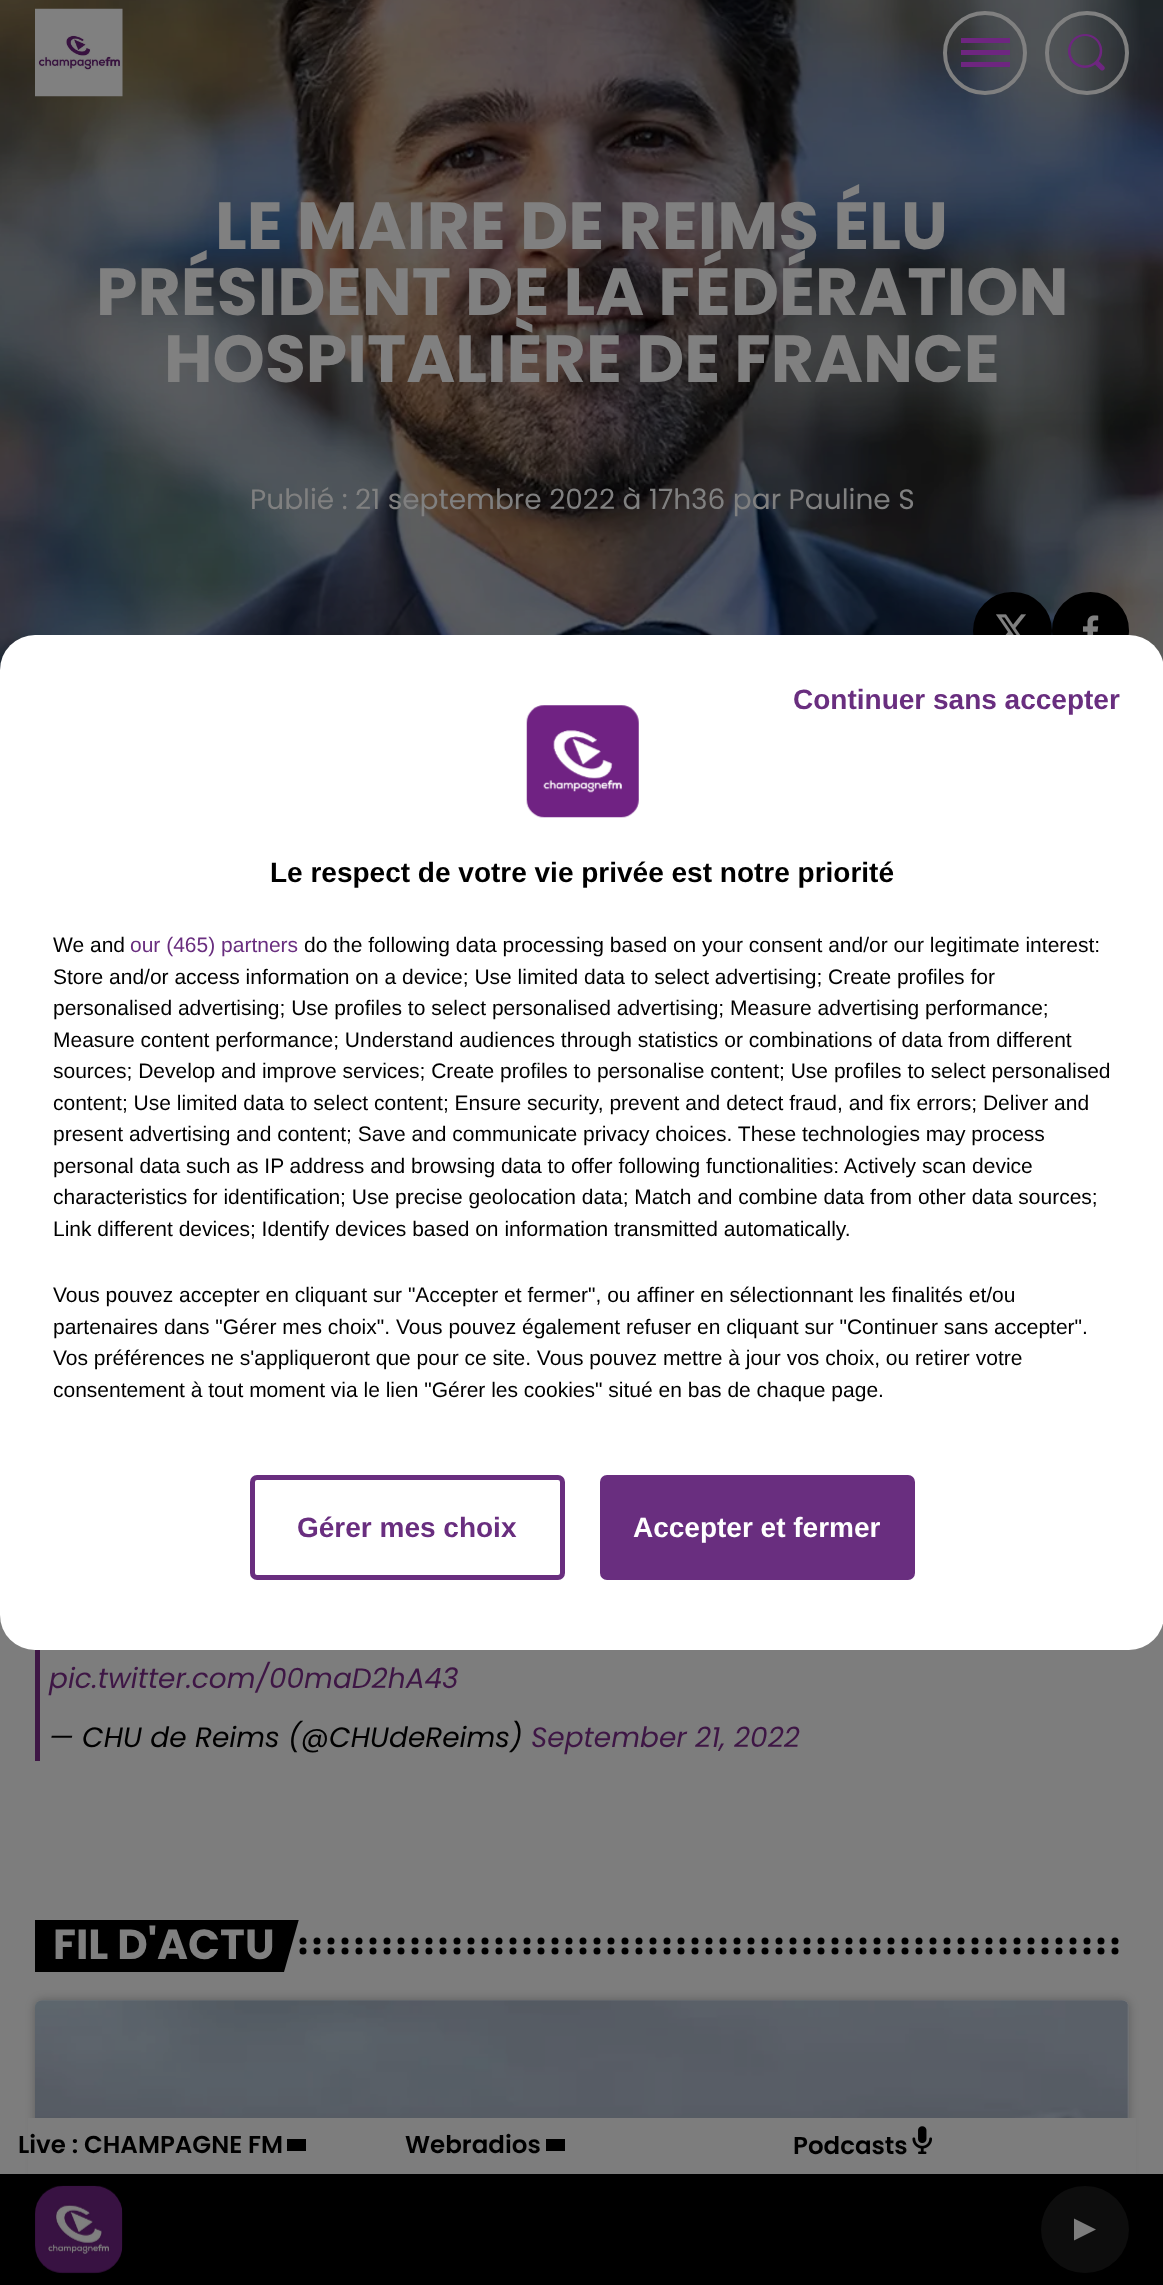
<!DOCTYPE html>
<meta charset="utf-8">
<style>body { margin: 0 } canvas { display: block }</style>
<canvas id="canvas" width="1163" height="2285"></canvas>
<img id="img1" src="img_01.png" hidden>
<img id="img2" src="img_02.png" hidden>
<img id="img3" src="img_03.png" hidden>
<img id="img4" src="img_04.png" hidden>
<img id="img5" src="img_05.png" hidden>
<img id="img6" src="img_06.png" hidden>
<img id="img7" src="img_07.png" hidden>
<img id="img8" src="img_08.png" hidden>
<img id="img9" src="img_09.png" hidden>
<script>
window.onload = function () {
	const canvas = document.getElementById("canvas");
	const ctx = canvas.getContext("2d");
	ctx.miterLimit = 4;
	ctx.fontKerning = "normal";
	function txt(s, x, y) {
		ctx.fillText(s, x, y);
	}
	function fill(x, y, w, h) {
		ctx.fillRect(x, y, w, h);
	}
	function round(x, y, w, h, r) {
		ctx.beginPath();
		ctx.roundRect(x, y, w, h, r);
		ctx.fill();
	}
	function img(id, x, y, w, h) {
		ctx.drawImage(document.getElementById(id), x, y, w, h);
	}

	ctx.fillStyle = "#7D7D7D";
	fill(0, 0, 1163, 2285);
	img("img1", 0, 0, 1163, 670);
	ctx.fillStyle = "#000000";
	ctx.beginPath();
	ctx.roundRect(975, 594, 75, 74, 37);
	ctx.fill();
	ctx.strokeStyle = "#000000";
	ctx.lineWidth = 4;
	ctx.stroke();
	img("img2", 996, 614, 30, 21);
	ctx.beginPath();
	ctx.roundRect(1054, 594, 73, 74, 36.5);
	ctx.fill();
	ctx.stroke();
	img("img3", 1082, 615, 17, 20);
	ctx.fillStyle = "#3E1645";
	fill(35, 1650, 5, 111);
	ctx.save();
	ctx.beginPath();
	ctx.rect(35, 1920, 275, 52);
	ctx.clip();
	ctx.fillStyle = "#000000";
	ctx.beginPath();
	ctx.moveTo(25, 1919);
	ctx.lineTo(299, 1919);
	ctx.lineTo(284, 1972);
	ctx.lineTo(10, 1972);
	ctx.closePath();
	ctx.fill();
	ctx.restore();
	ctx.save();
	ctx.beginPath();
	ctx.rect(35, 1920, 1094, 52);
	ctx.clip();
	ctx.beginPath();
	ctx.moveTo(303, 1941);
	ctx.lineTo(1129, 1941);
	ctx.lineWidth = 7;
	ctx.lineCap = "round";
	ctx.setLineDash([0, 14]);
	ctx.stroke();
	ctx.beginPath();
	ctx.moveTo(303, 1951);
	ctx.lineTo(1129, 1951);
	ctx.stroke();
	ctx.restore();
	ctx.fillStyle = "rgba(0, 0, 0, 0.25)";
	ctx.filter = "blur(5px)";
	ctx.beginPath();
	ctx.roundRect(35, 2000, 1094, 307, 7);
	ctx.fill();
	ctx.filter = "none";
	ctx.fillStyle = "#808080";
	round(35, 2000, 1094, 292, 7);
	img("img4", 35, 2000, 1094, 118);
	img("img5", 35, 8, 88, 89);
	ctx.beginPath();
	ctx.arc(985, 53, 40, 0, Math.PI * 2);
	ctx.strokeStyle = "#808080";
	ctx.stroke();
	ctx.fillStyle = "#6E2680";
	ctx.beginPath();
	ctx.moveTo(961, 67);
	ctx.lineTo(961, 62);
	ctx.lineTo(1010, 62);
	ctx.lineTo(1010, 67);
	ctx.closePath();
	ctx.moveTo(961, 55);
	ctx.lineTo(961, 50);
	ctx.lineTo(1010, 50);
	ctx.lineTo(1010, 55);
	ctx.closePath();
	ctx.moveTo(961, 43);
	ctx.lineTo(961, 38);
	ctx.lineTo(1010, 38);
	ctx.lineTo(1010, 43);
	ctx.closePath();
	ctx.fill();
	ctx.beginPath();
	ctx.arc(1087, 53, 40, 0, Math.PI * 2);
	ctx.stroke();
	img("img6", 1068, 34, 37, 37);
	ctx.fillStyle = "#7D7D7D";
	fill(28, 2118, 1108, 56);
	ctx.fillStyle = "#000000";
	fill(287, 2139, 19, 12);
	fill(546, 2139, 19, 12);
	img("img7", 912, 2126, 20, 28);
	fill(0, 2174, 1163, 111);
	img("img8", 35, 2185, 88, 89);
	ctx.fillStyle = "#0D0D0D";
	round(1041, 2186, 88, 87, 43.5);
	ctx.fillStyle = "#7D7D7D";
	ctx.beginPath();
	ctx.moveTo(1096, 2229.5);
	ctx.lineTo(1074, 2240.5);
	ctx.lineTo(1074, 2218.5);
	ctx.closePath();
	ctx.fill();
	ctx.fillStyle = "#FFFFFF";
	round(0, 635, 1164, 1015, 35);
	ctx.beginPath();
	ctx.roundRect(252.5, 1477.5, 310, 100, 4.5);
	ctx.strokeStyle = "#692E7F";
	ctx.lineWidth = 5;
	ctx.stroke();
	ctx.fillStyle = "#692E7F";
	ctx.beginPath();
	ctx.roundRect(602.5, 1477.5, 310, 100, 4.5);
	ctx.fill();
	ctx.stroke();
	img("img9", 526, 705, 113, 113);
	ctx.font = "bold 66.5px Poppins";
	ctx.fillStyle = "#808080";
	txt("LE MAIRE DE REIMS ÉLU", 215, 249);
	txt("PRÉSIDENT DE LA FÉDÉRATION", 96, 315);
	txt("HOSPITALIÈRE DE FRANCE", 164, 382);
	ctx.font = "28px Poppins";
	txt("Publié : 21 septembre 2022 à 17h36 par Pauline S", 250, 509);
	ctx.font = "italic 28px Poppins";
	ctx.fillStyle = "#3E1645";
	txt("pic.twitter.com/00maD2hA43", 49, 1688);
	ctx.fillStyle = "#000000";
	txt("— CHU de Reims (@CHUdeReims)", 49, 1747);
	ctx.fillStyle = "#3E1645";
	txt("September 21, 2022", 531, 1747);
	ctx.font = "bold 42px Poppins";
	ctx.fillStyle = "#808080";
	txt("FIL D'ACTU", 53, 1959);
	ctx.font = "600 24.5px Poppins";
	ctx.fillStyle = "#000000";
	txt("Live : CHAMPAGNE FM", 18, 2153);
	txt("Webradios", 405, 2153);
	txt("Podcasts", 793, 2154);
	ctx.font = "bold 28px Liberation Sans";
	ctx.fillStyle = "#692E7F";
	txt("Continuer sans accepter", 793, 709);
	txt("Gérer mes choix", 297, 1537);
	ctx.fillStyle = "#FFFFFF";
	txt("Accepter et fermer", 633, 1537);
	ctx.fillStyle = "#000000";
	txt("Le respect de votre vie privée est notre priorité", 270, 882);
	ctx.font = "21px Liberation Sans";
	txt("We and", 53, 952);
	ctx.fillStyle = "#692E7F";
	txt("our (465) partners", 130, 952);
	ctx.fillStyle = "#000000";
	txt("do the following data processing based on your consent and/or our legitimate interest:", 304, 952);
	txt("Store and/or access information on a device; Use limited data to select advertising; Create profiles for", 53, 984);
	txt("personalised advertising; Use profiles to select personalised advertising; Measure advertising performance;", 53, 1015);
	txt("Measure content performance; Understand audiences through statistics or combinations of data from different", 53, 1047);
	txt("sources; Develop and improve services; Create profiles to personalise content; Use profiles to select personalised", 53, 1078);
	txt("content; Use limited data to select content; Ensure security, prevent and detect fraud, and fix errors; Deliver and", 53, 1110);
	txt("present advertising and content; Save and communicate privacy choices. These technologies may process", 53, 1141);
	txt("personal data such as IP address and browsing data to offer following functionalities: Actively scan device", 53, 1173);
	txt("characteristics for identification; Use precise geolocation data; Match and combine data from other data sources;", 53, 1204);
	txt("Link different devices; Identify devices based on information transmitted automatically.", 53, 1236);
	txt("Vous pouvez accepter en cliquant sur \"Accepter et fermer\", ou affiner en sélectionnant les finalités et/ou", 53, 1302);
	txt("partenaires dans \"Gérer mes choix\". Vous pouvez également refuser en cliquant sur \"Continuer sans accepter\".", 53, 1334);
	txt("Vos préférences ne s'appliqueront que pour ce site. Vous pouvez mettre à jour vos choix, ou retirer votre", 53, 1365);
	txt("consentement à tout moment via le lien \"Gérer les cookies\" situé en bas de chaque page.", 53, 1397);
};
</script>
